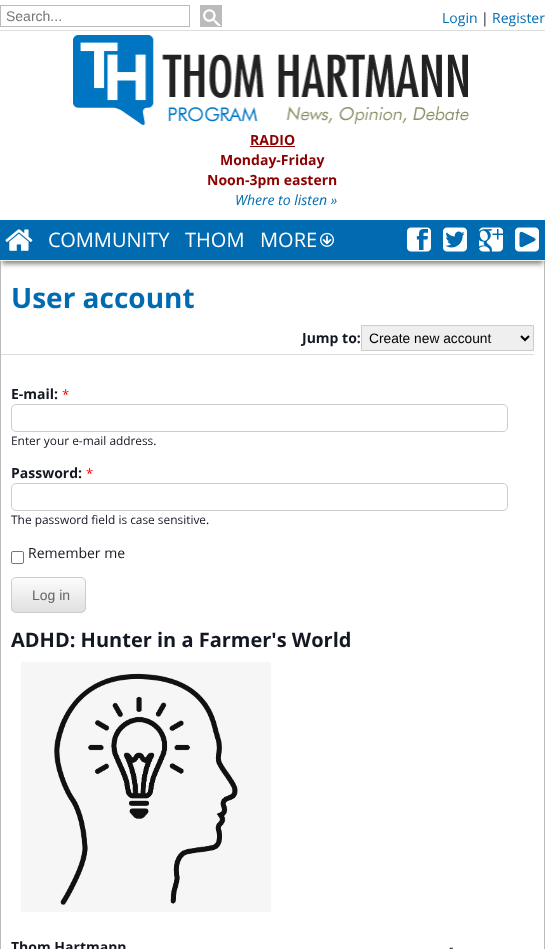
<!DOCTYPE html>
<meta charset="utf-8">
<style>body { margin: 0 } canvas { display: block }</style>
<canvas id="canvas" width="545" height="949"></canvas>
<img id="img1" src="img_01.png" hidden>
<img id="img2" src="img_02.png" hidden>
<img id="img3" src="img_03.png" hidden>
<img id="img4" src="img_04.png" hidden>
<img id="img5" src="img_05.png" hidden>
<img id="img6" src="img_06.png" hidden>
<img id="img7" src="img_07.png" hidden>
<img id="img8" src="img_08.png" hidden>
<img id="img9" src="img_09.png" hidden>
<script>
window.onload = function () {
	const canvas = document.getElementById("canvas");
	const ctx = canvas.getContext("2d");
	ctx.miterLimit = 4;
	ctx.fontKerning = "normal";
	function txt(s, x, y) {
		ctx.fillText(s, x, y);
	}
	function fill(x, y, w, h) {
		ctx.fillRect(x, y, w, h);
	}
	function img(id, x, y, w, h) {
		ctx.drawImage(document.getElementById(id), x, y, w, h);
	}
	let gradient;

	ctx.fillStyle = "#FFFFFF";
	fill(0, 0, 545, 949);
	ctx.fillStyle = "#DDDDDD";
	fill(0, 30, 545, 1);
	ctx.strokeStyle = "#BBBBBB";
	ctx.strokeRect(0.5, 5.5, 189, 21);
	ctx.fillStyle = "#BBBBBB";
	fill(201, 6, 20, 20);
	img("img1", 203, 9, 18, 17);
	ctx.strokeRect(200.5, 5.5, 21, 21);
	img("img2", 73, 35, 396, 90);
	ctx.fillStyle = "#8C0000";
	fill(250, 146, 45, 1);
	ctx.fillStyle = "#BBBBBB";
	fill(544, 261, 1, 688);
	fill(0, 261, 1, 688);
	ctx.fillStyle = "#888888";
	ctx.filter = "blur(2.5px)";
	ctx.beginPath();
	ctx.rect(2, 227, 541, 37);
	ctx.fill();
	ctx.filter = "none";
	ctx.fillStyle = "#006BB0";
	fill(0, 220, 545, 40);
	img("img3", 5, 229, 28, 22);
	img("img4", 320, 232, 14, 15);
	img("img5", 407, 227, 24, 25);
	img("img6", 443, 227, 24, 25);
	img("img7", 479, 227, 24, 25);
	img("img8", 515, 227, 24, 25);
	ctx.fillStyle = "#F0F0E1";
	fill(0, 260, 545, 1);
	ctx.fillStyle = "#DDDDDD";
	fill(1, 354, 533, 1);
	ctx.fillStyle = "#EFEFEF";
	ctx.beginPath();
	ctx.rect(361.5, 325.5, 172, 25);
	ctx.fill();
	ctx.strokeStyle = "#CCCCCC";
	ctx.stroke();
	ctx.beginPath();
	ctx.moveTo(521, 336);
	ctx.lineTo(525, 340);
	ctx.lineTo(529, 336);
	ctx.strokeStyle = "#000000";
	ctx.lineWidth = 2;
	ctx.stroke();
	ctx.beginPath();
	ctx.roundRect(11.5, 404.5, 496, 27, 4.5);
	ctx.strokeStyle = "#CCCCCC";
	ctx.lineWidth = 1;
	ctx.stroke();
	ctx.beginPath();
	ctx.roundRect(11.5, 483.5, 496, 27, 4.5);
	ctx.stroke();
	ctx.beginPath();
	ctx.roundRect(11.5, 551.5, 12, 12, 1.5);
	ctx.strokeStyle = "#767676";
	ctx.stroke();
	ctx.save();
	ctx.beginPath();
	ctx.roundRect(11, 577, 75, 36, 5);
	ctx.clip();
	gradient = ctx.createLinearGradient(49, 578, 49, 612);
	gradient.addColorStop(0, "#FCFCFC");
	gradient.addColorStop(1, "#E0E0E0");
	ctx.fillStyle = gradient;
	fill(11, 578, 75, 34);
	ctx.restore();
	ctx.beginPath();
	ctx.roundRect(11.5, 577.5, 74, 35, 4.5);
	ctx.strokeStyle = "#CCCCCC";
	ctx.stroke();
	img("img9", 21, 662, 250, 250);
	ctx.font = "14px Liberation Sans";
	ctx.fillStyle = "#757575";
	txt("Search...", 6, 21);
	ctx.font = "14px Open Sans";
	ctx.fillStyle = "#006BB0";
	txt("Login", 442, 23);
	ctx.fillStyle = "#141823";
	txt("|", 481, 23);
	ctx.fillStyle = "#006BB0";
	txt("Register", 492, 23);
	ctx.font = "bold 14px Open Sans";
	ctx.fillStyle = "#8C0000";
	txt("RADIO", 250, 145);
	txt("Monday-Friday", 220, 165);
	txt("Noon-3pm eastern", 207, 185);
	ctx.font = "italic 14px Open Sans";
	ctx.fillStyle = "#006BB0";
	txt("Where to listen »", 235, 205);
	ctx.font = "20px Open Sans";
	ctx.fillStyle = "#FFFFFF";
	txt("COMMUNITY", 48, 247);
	txt("THOM", 185, 247);
	txt("MORE", 260, 247);
	ctx.font = "bold 28px Open Sans";
	ctx.fillStyle = "#006BB0";
	txt("User account", 11, 308);
	ctx.font = "bold 14px Open Sans";
	ctx.fillStyle = "#141823";
	txt("Jump to:", 302, 343);
	ctx.font = "13.75px Liberation Sans";
	ctx.fillStyle = "#000000";
	txt("Create new account", 369, 343);
	ctx.font = "bold 14px Open Sans";
	ctx.fillStyle = "#141823";
	txt("E-mail:", 11, 399);
	ctx.font = "13px Open Sans";
	ctx.fillStyle = "#FF0000";
	txt("*", 62, 399);
	ctx.font = "11.9px Open Sans";
	ctx.fillStyle = "#141823";
	txt("Enter your e-mail address.", 11, 445);
	ctx.font = "bold 14px Open Sans";
	txt("Password:", 11, 478);
	ctx.font = "13px Open Sans";
	ctx.fillStyle = "#FF0000";
	txt("*", 86, 478);
	ctx.font = "11.9px Open Sans";
	ctx.fillStyle = "#141823";
	txt("The password field is case sensitive.", 11, 524);
	ctx.font = "14px Open Sans";
	txt("Remember me", 28, 558);
	ctx.font = "14px Liberation Sans";
	ctx.fillStyle = "#666666";
	txt("Log in", 32, 600);
	ctx.font = "bold 20px Open Sans";
	ctx.fillStyle = "#141823";
	txt("ADHD: Hunter in a Farmer's World", 11, 647);
	ctx.font = "bold 14px Open Sans";
	txt("Thom Hartmann", 11, 952);
	ctx.font = "14px Open Sans";
	txt("-", 449, 952);
};
</script>
